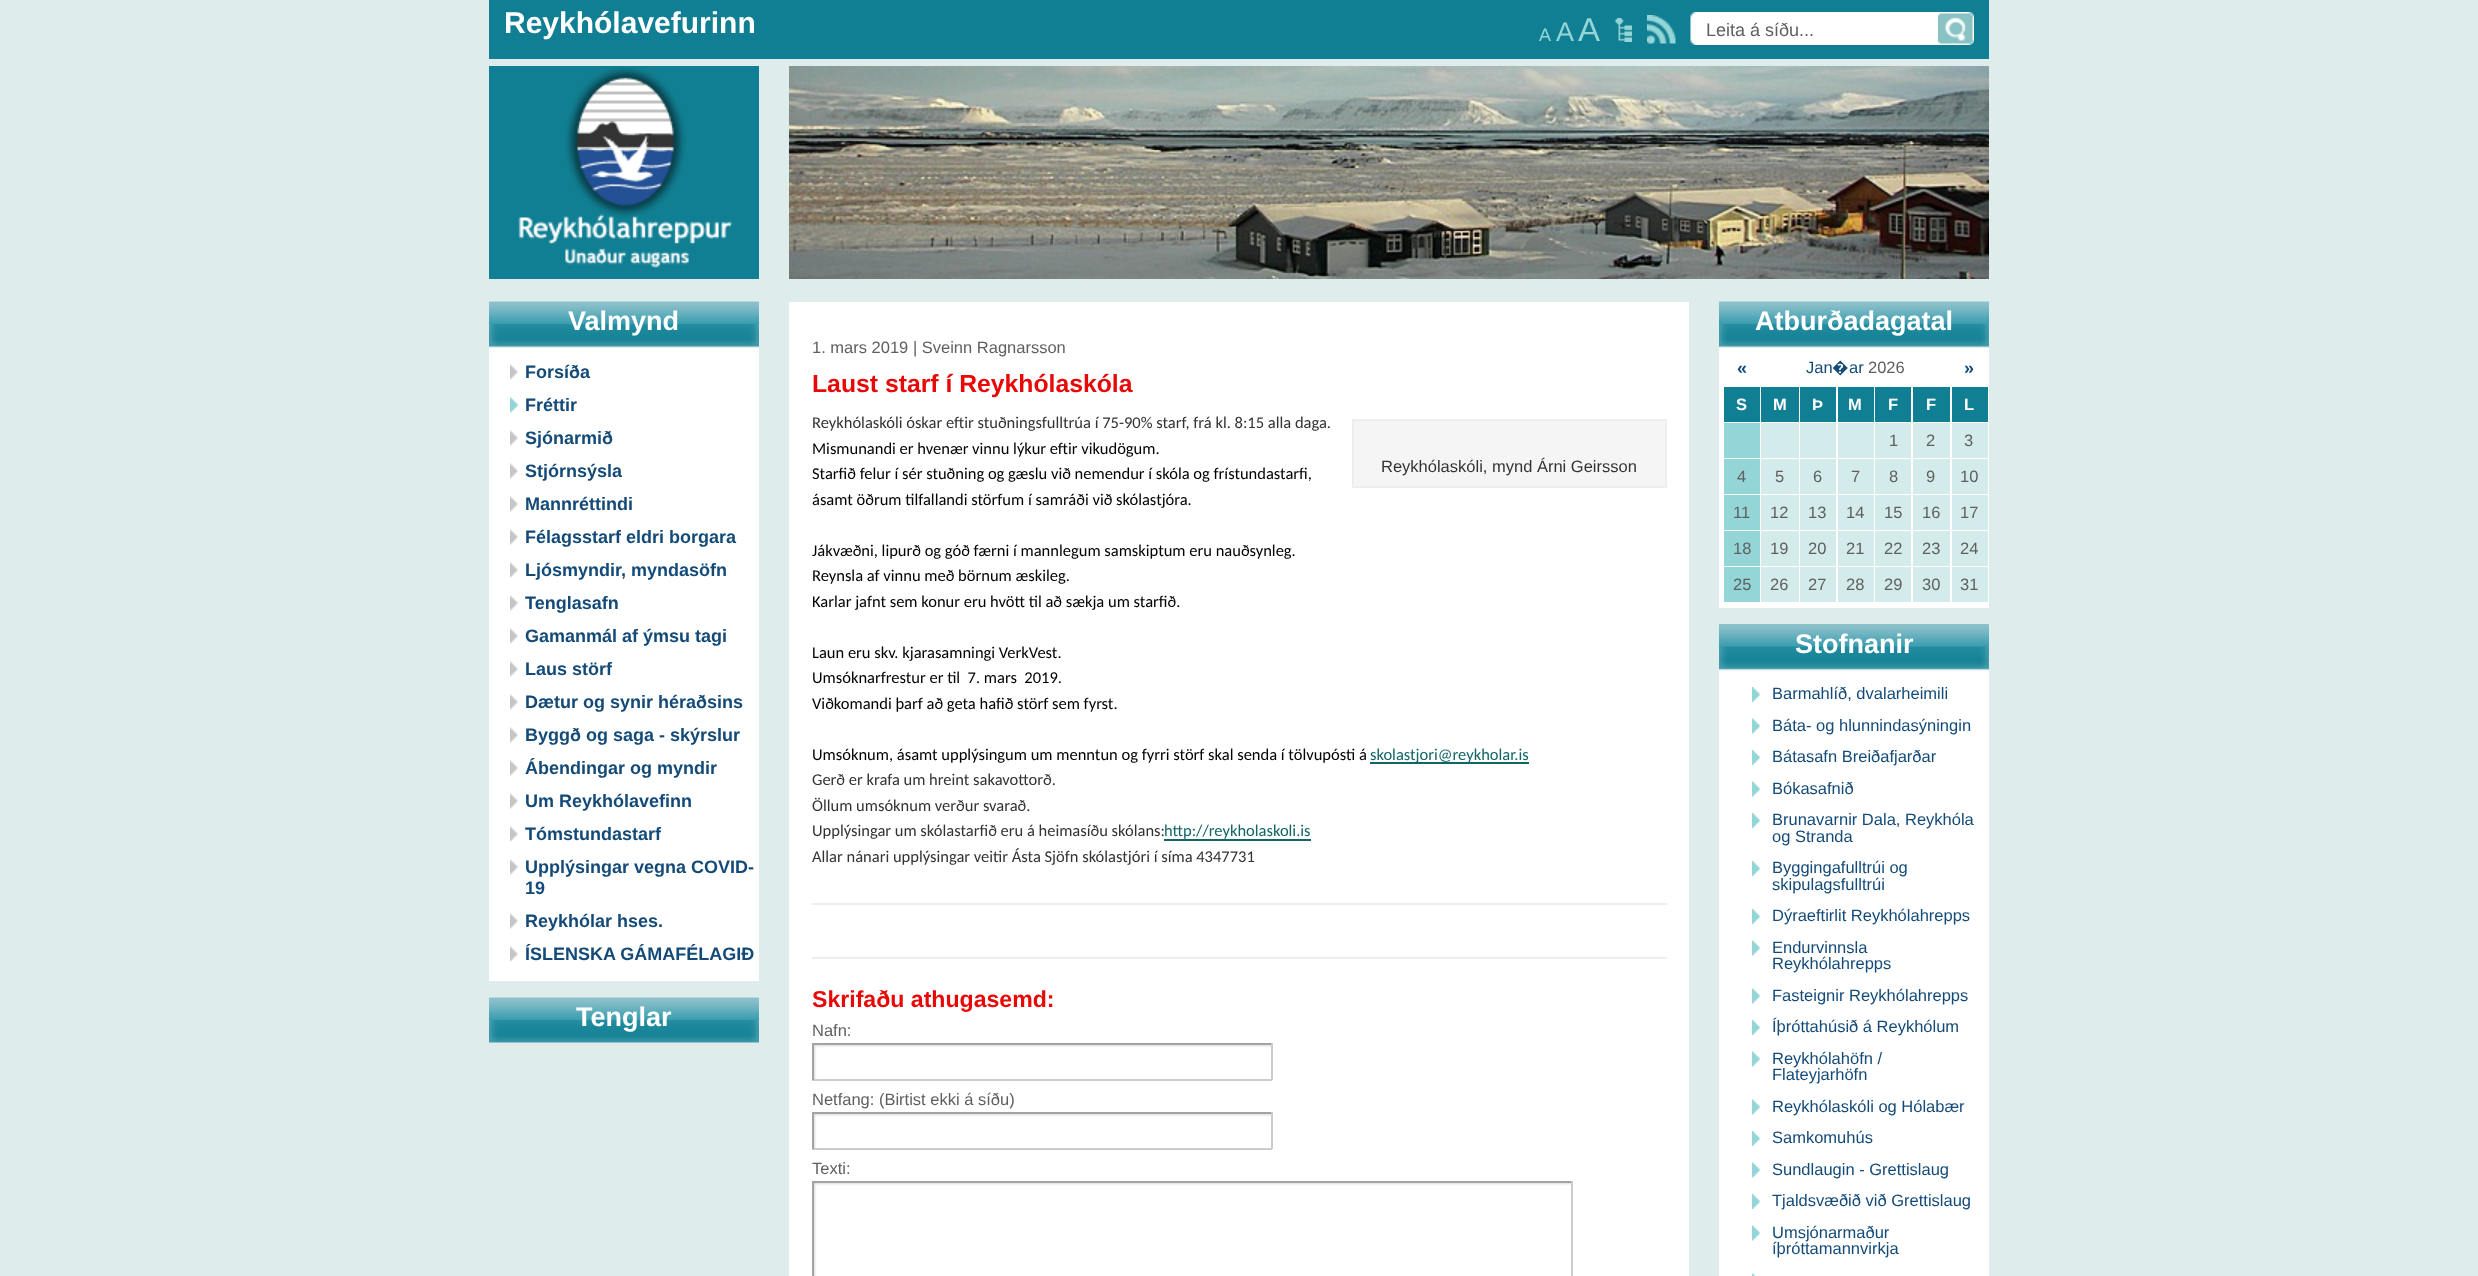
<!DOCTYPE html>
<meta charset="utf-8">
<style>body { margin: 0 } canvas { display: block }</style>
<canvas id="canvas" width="2478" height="1276"></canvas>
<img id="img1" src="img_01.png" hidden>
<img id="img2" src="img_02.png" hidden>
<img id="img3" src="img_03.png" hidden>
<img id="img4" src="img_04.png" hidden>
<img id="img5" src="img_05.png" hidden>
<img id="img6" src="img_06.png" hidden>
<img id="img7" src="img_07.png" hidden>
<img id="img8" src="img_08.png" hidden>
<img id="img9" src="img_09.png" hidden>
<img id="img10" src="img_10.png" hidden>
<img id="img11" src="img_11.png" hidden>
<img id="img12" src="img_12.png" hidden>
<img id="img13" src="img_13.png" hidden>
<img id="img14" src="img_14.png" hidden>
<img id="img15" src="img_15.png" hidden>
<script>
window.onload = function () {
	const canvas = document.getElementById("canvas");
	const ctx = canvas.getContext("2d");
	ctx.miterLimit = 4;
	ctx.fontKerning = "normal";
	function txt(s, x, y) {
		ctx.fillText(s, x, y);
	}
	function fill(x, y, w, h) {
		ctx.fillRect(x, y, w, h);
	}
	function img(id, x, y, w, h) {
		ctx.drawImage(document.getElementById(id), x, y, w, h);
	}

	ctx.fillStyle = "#DEECEC";
	fill(0, 0, 2478, 1276);
	ctx.fillStyle = "#117F93";
	fill(489, 0, 1500, 59);
	img("img1", 1615, 18, 17, 24);
	img("img2", 1647, 15, 29, 29);
	ctx.fillStyle = "#FFFFFF";
	fill(1696, 12, 242, 33);
	img("img3", 1690, 12, 7, 33);
	img("img4", 1938, 12, 36, 33);
	img("img5", 489, 66, 270, 213);
	img("img6", 789, 66, 1200, 213);
	fill(489, 348, 270, 633);
	img("img7", 489, 301, 270, 47);
	img("img8", 510, 364, 8, 16);
	img("img9", 510, 397, 8, 16);
	img("img8", 510, 430, 8, 16);
	img("img8", 510, 463, 8, 16);
	img("img8", 510, 496, 8, 16);
	img("img8", 510, 529, 8, 16);
	img("img8", 510, 562, 8, 16);
	img("img8", 510, 595, 8, 16);
	img("img8", 510, 628, 8, 16);
	img("img8", 510, 661, 8, 16);
	img("img8", 510, 694, 8, 16);
	img("img8", 510, 727, 8, 16);
	img("img8", 510, 760, 8, 16);
	img("img8", 510, 793, 8, 16);
	img("img8", 510, 826, 8, 16);
	img("img8", 510, 859, 8, 16);
	img("img8", 510, 913, 8, 16);
	img("img8", 510, 946, 8, 16);
	img("img7", 489, 997, 270, 47);
	fill(789, 302, 900, 974);
	ctx.fillStyle = "#F5F5F5";
	ctx.beginPath();
	ctx.rect(1353, 420, 313, 67);
	ctx.fill();
	ctx.strokeStyle = "#EEEEEE";
	ctx.lineWidth = 2;
	ctx.stroke();
	ctx.fillStyle = "#126567";
	fill(1370, 762, 159, 2);
	fill(1164, 839, 147, 2);
	ctx.fillStyle = "#EEEEEE";
	fill(812, 903, 855, 2);
	fill(812, 957, 855, 2);
	img("img10", 814, 1045, 457, 34);
	ctx.fillStyle = "#A3A3A3";
	fill(812, 1043, 460, 2);
	ctx.fillStyle = "#CCCCCC";
	fill(1271, 1043, 2, 37);
	fill(812, 1079, 460, 2);
	ctx.fillStyle = "#A3A3A3";
	fill(812, 1043, 2, 37);
	img("img10", 814, 1114, 457, 34);
	fill(812, 1112, 460, 2);
	ctx.fillStyle = "#CCCCCC";
	fill(1271, 1112, 2, 37);
	fill(812, 1148, 460, 2);
	ctx.fillStyle = "#A3A3A3";
	fill(812, 1112, 2, 37);
	img("img11", 814, 1183, 757, 93);
	fill(812, 1181, 760, 2);
	ctx.fillStyle = "#CCCCCC";
	fill(1571, 1181, 2, 95);
	ctx.fillStyle = "#A3A3A3";
	fill(812, 1181, 2, 95);
	ctx.fillStyle = "#FFFFFF";
	fill(1719, 348, 270, 260);
	img("img12", 1719, 301, 270, 47);
	ctx.fillStyle = "#117F93";
	fill(1724, 387, 36, 35);
	fill(1761, 387, 38, 35);
	fill(1800, 387, 36, 35);
	fill(1838, 387, 36, 35);
	fill(1875, 387, 36, 35);
	fill(1913, 387, 37, 35);
	fill(1952, 387, 36, 35);
	ctx.fillStyle = "#94D6D7";
	fill(1724, 423, 36, 35);
	ctx.fillStyle = "#D4EBEB";
	fill(1761, 423, 38, 35);
	fill(1800, 423, 36, 35);
	fill(1838, 423, 36, 35);
	fill(1875, 423, 36, 35);
	fill(1913, 423, 37, 35);
	fill(1952, 423, 36, 35);
	ctx.fillStyle = "#94D6D7";
	fill(1724, 459, 36, 35);
	ctx.fillStyle = "#D4EBEB";
	fill(1761, 459, 38, 35);
	fill(1800, 459, 36, 35);
	fill(1838, 459, 36, 35);
	fill(1875, 459, 36, 35);
	fill(1913, 459, 37, 35);
	fill(1952, 459, 36, 35);
	ctx.fillStyle = "#94D6D7";
	fill(1724, 495, 36, 35);
	ctx.fillStyle = "#D4EBEB";
	fill(1761, 495, 38, 35);
	fill(1800, 495, 36, 35);
	fill(1838, 495, 36, 35);
	fill(1875, 495, 36, 35);
	fill(1913, 495, 37, 35);
	fill(1952, 495, 36, 35);
	ctx.fillStyle = "#94D6D7";
	fill(1724, 531, 36, 35);
	ctx.fillStyle = "#D4EBEB";
	fill(1761, 531, 38, 35);
	fill(1800, 531, 36, 35);
	fill(1838, 531, 36, 35);
	fill(1875, 531, 36, 35);
	fill(1913, 531, 37, 35);
	fill(1952, 531, 36, 35);
	ctx.fillStyle = "#94D6D7";
	fill(1724, 567, 36, 35);
	ctx.fillStyle = "#D4EBEB";
	fill(1761, 567, 38, 35);
	fill(1800, 567, 36, 35);
	fill(1838, 567, 36, 35);
	fill(1875, 567, 36, 35);
	fill(1913, 567, 37, 35);
	fill(1952, 567, 36, 35);
	ctx.fillStyle = "#FFFFFF";
	fill(1719, 670, 270, 606);
	img("img13", 1719, 624, 270, 47);
	img("img14", 1752, 687, 8, 15);
	img("img9", 1752, 718, 8, 16);
	img("img14", 1752, 750, 8, 15);
	img("img9", 1752, 781, 8, 16);
	img("img14", 1752, 813, 8, 15);
	img("img14", 1752, 861, 8, 15);
	img("img14", 1752, 909, 8, 15);
	img("img9", 1752, 940, 8, 16);
	img("img9", 1752, 988, 8, 16);
	img("img14", 1752, 1020, 8, 15);
	img("img9", 1752, 1051, 8, 16);
	img("img9", 1752, 1099, 8, 16);
	img("img14", 1752, 1131, 8, 15);
	img("img9", 1752, 1162, 8, 16);
	img("img14", 1752, 1194, 8, 15);
	img("img9", 1752, 1225, 8, 16);
	img("img15", 1752, 1273, 4, 3);
	ctx.font = "bold 30px Liberation Sans";
	txt("Reykhólavefurinn", 504, 33);
	ctx.font = "18px Liberation Sans";
	ctx.fillStyle = "#94D6D7";
	txt("A", 1539, 41);
	ctx.font = "27px Liberation Sans";
	txt("A", 1556, 41);
	ctx.font = "33px Liberation Sans";
	txt("A", 1578, 41);
	ctx.font = "18px Liberation Sans";
	ctx.fillStyle = "#5F5F5F";
	txt("Leita á síðu...", 1706, 36);
	ctx.font = "bold 27px Liberation Sans";
	ctx.fillStyle = "#FFFFFF";
	txt("Valmynd", 568, 330);
	ctx.font = "bold 18px Liberation Sans";
	ctx.fillStyle = "#134A78";
	txt("Forsíða", 525, 378);
	txt("Fréttir", 525, 411);
	txt("Sjónarmið", 525, 444);
	txt("Stjórnsýsla", 525, 477);
	txt("Mannréttindi", 525, 510);
	txt("Félagsstarf eldri borgara", 525, 543);
	txt("Ljósmyndir, myndasöfn", 525, 576);
	txt("Tenglasafn", 525, 609);
	txt("Gamanmál af ýmsu tagi", 525, 642);
	txt("Laus störf", 525, 675);
	txt("Dætur og synir héraðsins", 525, 708);
	txt("Byggð og saga - skýrslur", 525, 741);
	txt("Ábendingar og myndir", 525, 774);
	txt("Um Reykhólavefinn", 525, 807);
	txt("Tómstundastarf", 525, 840);
	txt("Upplýsingar vegna COVID-", 525, 873);
	txt("19", 525, 894);
	txt("Reykhólar hses.", 525, 927);
	txt("ÍSLENSKA GÁMAFÉLAGIÐ", 525, 960);
	ctx.font = "bold 27px Liberation Sans";
	ctx.fillStyle = "#FFFFFF";
	txt("Tenglar", 576, 1026);
	ctx.font = "16.5px Liberation Sans";
	ctx.fillStyle = "#5F5F5F";
	txt("1. mars 2019 | Sveinn Ragnarsson", 812, 353);
	ctx.font = "bold 24.75px Liberation Sans";
	ctx.fillStyle = "#E80808";
	txt("Laust starf í Reykhólaskóla", 812, 392);
	ctx.font = "16.5px Carlito";
	ctx.fillStyle = "#333333";
	txt("Reykhólaskóli óskar eftir stuðningsfulltrúa í 75-90% starf, frá kl. 8:15 alla daga.", 812, 428);
	ctx.fillStyle = "#000000";
	txt("Mismunandi er hvenær vinnu lýkur eftir vikudögum.", 812, 454);
	txt("Starfið felur í sér stuðning og gæslu við nemendur í skóla og frístundastarfi,", 812, 479);
	txt("ásamt öðrum tilfallandi störfum í samráði við skólastjóra.", 812, 505);
	ctx.font = "16.5px Liberation Sans";
	ctx.fillStyle = "#333333";
	txt("Reykhólaskóli, mynd Árni Geirsson", 1381, 472);
	ctx.font = "16.5px Carlito";
	ctx.fillStyle = "#000000";
	txt("Jákvæðni, lipurð og góð færni í mannlegum samskiptum eru nauðsynleg.", 812, 556);
	txt("Reynsla af vinnu með börnum æskileg.", 812, 581);
	txt("Karlar jafnt sem konur eru hvött til að sækja um starfið.", 812, 607);
	txt("Laun eru skv. kjarasamningi VerkVest.", 812, 658);
	txt("Umsóknarfrestur er til  7. mars  2019.", 812, 683);
	txt("Viðkomandi þarf að geta hafið störf sem fyrst.", 812, 709);
	txt("Umsóknum, ásamt upplýsingum um menntun og fyrri störf skal senda í tölvupósti á", 812, 760);
	ctx.fillStyle = "#126567";
	txt("skolastjori@reykholar.is", 1370, 760);
	ctx.fillStyle = "#333333";
	txt("Gerð er krafa um hreint sakavottorð.", 812, 785);
	txt("Öllum umsóknum verður svarað.", 812, 811);
	txt("Upplýsingar um skólastarfið eru á heimasíðu skólans:", 812, 836);
	ctx.fillStyle = "#126567";
	txt("http://reykholaskoli.is", 1164, 836);
	ctx.fillStyle = "#333333";
	txt("Allar nánari upplýsingar veitir Ásta Sjöfn skólastjóri í síma 4347731", 812, 862);
	ctx.font = "bold 23.1px Liberation Sans";
	ctx.fillStyle = "#E80808";
	txt("Skrifaðu athugasemd:", 812, 1007);
	ctx.font = "16.5px Liberation Sans";
	ctx.fillStyle = "#5F5F5F";
	txt("Nafn:", 812, 1036);
	txt("Netfang: (Birtist ekki á síðu)", 812, 1105);
	txt("Texti:", 812, 1174);
	ctx.font = "bold 27px Liberation Sans";
	ctx.fillStyle = "#FFFFFF";
	txt("Atburðadagatal", 1755, 330);
	ctx.font = "bold 18px Liberation Sans";
	ctx.fillStyle = "#134A78";
	txt("«", 1737, 374);
	ctx.font = "16.5px Liberation Sans";
	txt("Jan", 1806, 373);
	ctx.font = "16.5px Noto Sans";
	txt("�", 1832, 373);
	ctx.font = "16.5px Liberation Sans";
	txt("ar", 1849, 373);
	ctx.fillStyle = "#5F5F5F";
	txt("2026", 1868, 373);
	ctx.font = "bold 18px Liberation Sans";
	ctx.fillStyle = "#134A78";
	txt("»", 1964, 374);
	ctx.font = "bold 16.5px Liberation Sans";
	ctx.fillStyle = "#FFFFFF";
	txt("S", 1736, 410);
	txt("M", 1773, 410);
	txt("Þ", 1812, 410);
	txt("M", 1848, 410);
	txt("F", 1888, 410);
	txt("F", 1926, 410);
	txt("L", 1964, 410);
	ctx.font = "16.5px Liberation Sans";
	ctx.fillStyle = "#5F5F5F";
	txt("1", 1889, 446);
	txt("2", 1926, 446);
	txt("3", 1964, 446);
	txt("4", 1737, 482);
	txt("5", 1775, 482);
	txt("6", 1813, 482);
	txt("7", 1851, 482);
	txt("8", 1889, 482);
	txt("9", 1926, 482);
	txt("10", 1960, 482);
	txt("11", 1733, 518);
	txt("12", 1770, 518);
	txt("13", 1808, 518);
	txt("14", 1846, 518);
	txt("15", 1884, 518);
	txt("16", 1922, 518);
	txt("17", 1960, 518);
	txt("18", 1733, 554);
	txt("19", 1770, 554);
	txt("20", 1808, 554);
	txt("21", 1846, 554);
	txt("22", 1884, 554);
	txt("23", 1922, 554);
	txt("24", 1960, 554);
	txt("25", 1733, 590);
	txt("26", 1770, 590);
	txt("27", 1808, 590);
	txt("28", 1846, 590);
	txt("29", 1884, 590);
	txt("30", 1922, 590);
	txt("31", 1960, 590);
	ctx.font = "bold 27px Liberation Sans";
	ctx.fillStyle = "#FFFFFF";
	txt("Stofnanir", 1795, 653);
	ctx.font = "16.5px Liberation Sans";
	ctx.fillStyle = "#134A78";
	txt("Barmahlíð, dvalarheimili", 1772, 699);
	txt("Báta- og hlunnindasýningin", 1772, 731);
	txt("Bátasafn Breiðafjarðar", 1772, 762);
	txt("Bókasafnið", 1772, 794);
	txt("Brunavarnir Dala, Reykhóla", 1772, 825);
	txt("og Stranda", 1772, 842);
	txt("Byggingafulltrúi og", 1772, 873);
	txt("skipulagsfulltrúi", 1772, 890);
	txt("Dýraeftirlit Reykhólahrepps", 1772, 921);
	txt("Endurvinnsla", 1772, 953);
	txt("Reykhólahrepps", 1772, 969);
	txt("Fasteignir Reykhólahrepps", 1772, 1001);
	txt("Íþróttahúsið á Reykhólum", 1772, 1032);
	txt("Reykhólahöfn /", 1772, 1064);
	txt("Flateyjarhöfn", 1772, 1080);
	txt("Reykhólaskóli og Hólabær", 1772, 1112);
	txt("Samkomuhús", 1772, 1143);
	txt("Sundlaugin - Grettislaug", 1772, 1175);
	txt("Tjaldsvæðið við Grettislaug", 1772, 1206);
	txt("Umsjónarmaður", 1772, 1238);
	txt("íþróttamannvirkja", 1772, 1254);
};
</script>
